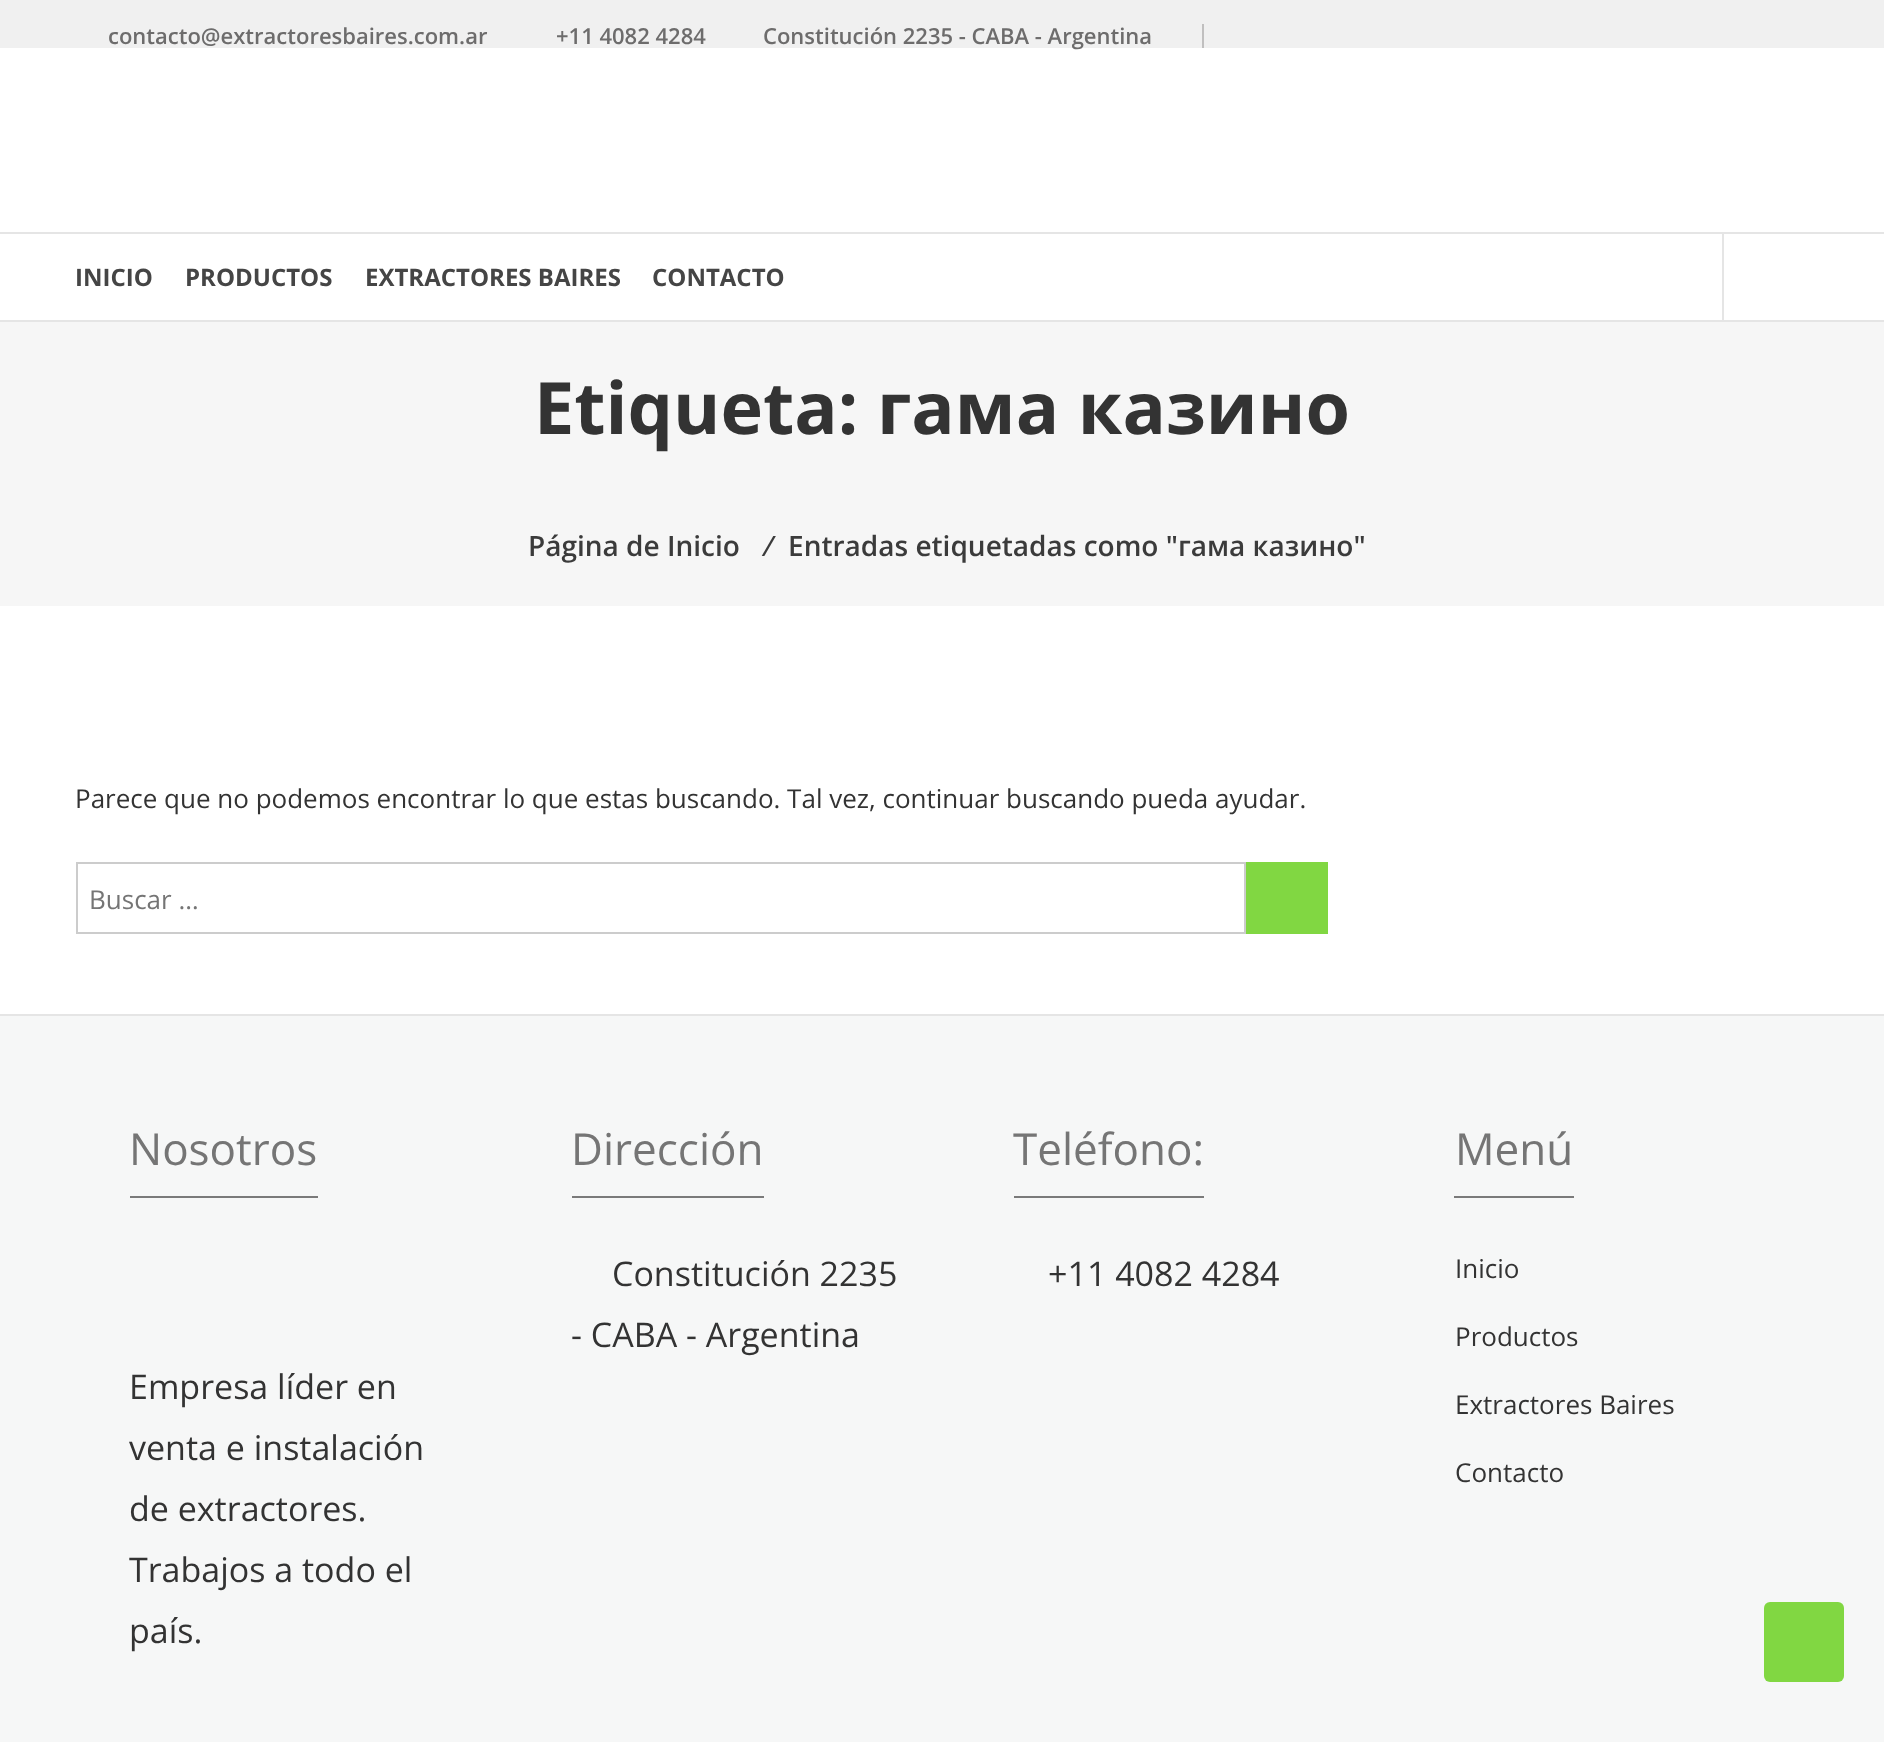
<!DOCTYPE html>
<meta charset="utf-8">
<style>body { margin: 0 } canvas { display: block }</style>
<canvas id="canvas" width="1884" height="1742"></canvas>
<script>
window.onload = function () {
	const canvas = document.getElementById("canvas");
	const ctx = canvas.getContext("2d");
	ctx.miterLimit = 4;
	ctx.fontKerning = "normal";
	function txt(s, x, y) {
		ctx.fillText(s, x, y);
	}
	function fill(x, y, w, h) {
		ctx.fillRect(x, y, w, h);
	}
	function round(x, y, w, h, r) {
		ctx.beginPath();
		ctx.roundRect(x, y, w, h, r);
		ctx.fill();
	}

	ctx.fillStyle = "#FFFFFF";
	fill(0, 0, 1884, 1742);
	ctx.fillStyle = "#F0F0F0";
	fill(0, 0, 1884, 48);
	ctx.fillStyle = "#C0BFBF";
	fill(1202, 24, 2, 24);
	ctx.fillStyle = "#E5E5E5";
	fill(0, 232, 1884, 2);
	fill(0, 320, 1884, 2);
	fill(1722, 234, 2, 86);
	ctx.fillStyle = "#F6F6F6";
	fill(0, 322, 1884, 284);
	ctx.strokeStyle = "#CCCCCC";
	ctx.lineWidth = 2;
	ctx.strokeRect(77, 863, 1168, 70);
	ctx.fillStyle = "#81D742";
	fill(1246, 862, 82, 72);
	ctx.fillStyle = "#E5E5E5";
	fill(0, 1014, 1884, 2);
	ctx.fillStyle = "#F6F7F7";
	fill(0, 1016, 1884, 726);
	ctx.fillStyle = "#7A7A7A";
	fill(130, 1196, 188, 2);
	fill(572, 1196, 192, 2);
	fill(1014, 1196, 190, 2);
	fill(1454, 1196, 120, 2);
	ctx.fillStyle = "#81D742";
	round(1764, 1602, 80, 80, 6);
	ctx.font = "600 22px Open Sans";
	ctx.fillStyle = "#6D6C6C";
	txt("contacto@extractoresbaires.com.ar", 108, 44);
	txt("+11 4082 4284", 556, 44);
	txt("Constitución 2235 - CABA - Argentina", 763, 44);
	ctx.font = "bold 24px Open Sans";
	ctx.fillStyle = "#454545";
	txt("INICIO", 75, 286);
	txt("PRODUCTOS", 185, 286);
	txt("EXTRACTORES BAIRES", 365, 286);
	txt("CONTACTO", 652, 286);
	ctx.font = "bold 72px Open Sans";
	ctx.fillStyle = "#333333";
	txt("Etiqueta: гама казино", 534, 434);
	ctx.font = "600 28px Open Sans";
	ctx.fillStyle = "#3B3B3B";
	txt("Página de Inicio", 528, 556);
	txt("⁄", 767, 556);
	txt("Entradas etiquetadas como \"гама казино\"", 788, 556);
	ctx.font = "26px Open Sans";
	ctx.fillStyle = "#333333";
	txt("Parece que no podemos encontrar lo que estas buscando. Tal vez, continuar buscando pueda ayudar.", 75, 808);
	ctx.fillStyle = "#757575";
	txt("Buscar …", 89, 909);
	ctx.font = "44px Open Sans";
	txt("Nosotros", 129, 1165);
	ctx.font = "34px Open Sans";
	ctx.fillStyle = "#333333";
	txt("Empresa líder en", 129, 1399);
	txt("venta e instalación", 129, 1460);
	txt("de extractores.", 129, 1521);
	txt("Trabajos a todo el", 129, 1582);
	txt("país.", 129, 1643);
	ctx.font = "44px Open Sans";
	ctx.fillStyle = "#757575";
	txt("Dirección", 571, 1165);
	ctx.font = "34px Open Sans";
	ctx.fillStyle = "#333333";
	txt("Constitución 2235", 612, 1286);
	txt("- CABA - Argentina", 571, 1347);
	ctx.font = "44px Open Sans";
	ctx.fillStyle = "#757575";
	txt("Teléfono:", 1013, 1165);
	ctx.font = "34px Open Sans";
	ctx.fillStyle = "#333333";
	txt("+11 4082 4284", 1048, 1286);
	ctx.font = "44px Open Sans";
	ctx.fillStyle = "#757575";
	txt("Menú", 1455, 1165);
	ctx.font = "26px Open Sans";
	ctx.fillStyle = "#333333";
	txt("Inicio", 1455, 1278);
	txt("Productos", 1455, 1346);
	txt("Extractores Baires", 1455, 1414);
	txt("Contacto", 1455, 1482);
};
</script>
